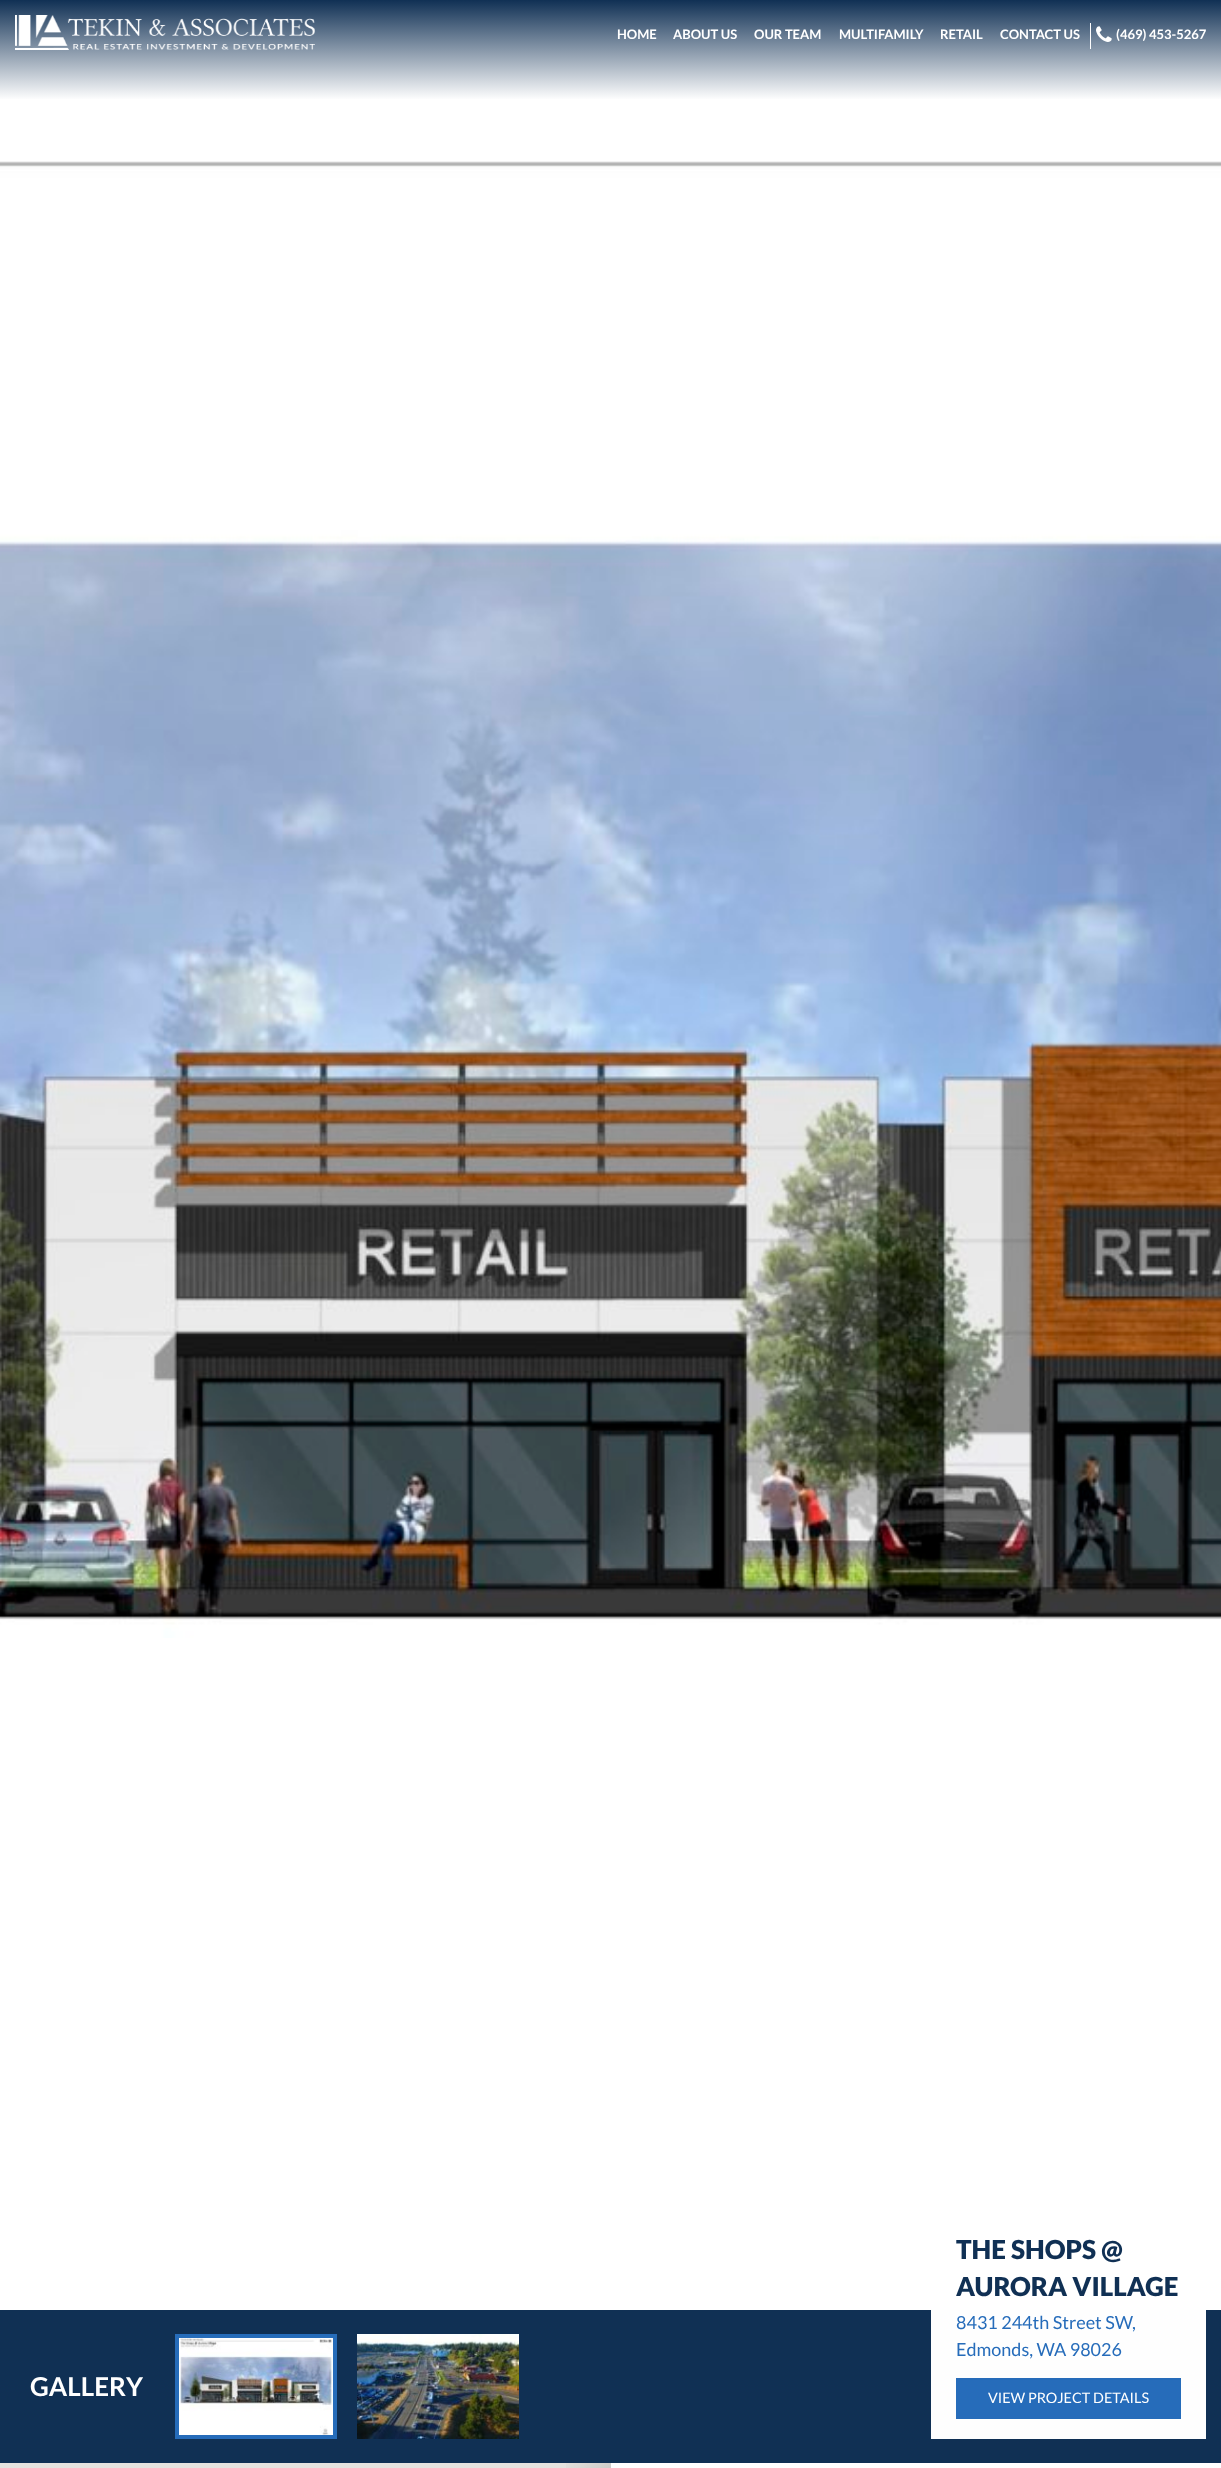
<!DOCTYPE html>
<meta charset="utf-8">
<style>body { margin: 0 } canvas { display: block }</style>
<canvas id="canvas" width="1221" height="2468"></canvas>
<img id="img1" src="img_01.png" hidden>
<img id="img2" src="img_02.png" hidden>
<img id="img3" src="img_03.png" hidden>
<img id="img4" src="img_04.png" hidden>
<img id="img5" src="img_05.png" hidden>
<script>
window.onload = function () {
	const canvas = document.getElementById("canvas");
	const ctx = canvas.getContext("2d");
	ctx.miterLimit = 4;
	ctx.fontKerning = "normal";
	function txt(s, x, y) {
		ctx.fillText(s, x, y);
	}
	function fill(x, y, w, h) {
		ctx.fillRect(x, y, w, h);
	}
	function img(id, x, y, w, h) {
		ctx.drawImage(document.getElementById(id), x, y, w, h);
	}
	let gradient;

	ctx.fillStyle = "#FFFFFF";
	fill(0, 0, 1221, 2468);
	gradient = ctx.createLinearGradient(611, 0, 611, 100);
	gradient.addColorStop(0, "#103054");
	gradient.addColorStop(1, "#FFFFFF");
	ctx.fillStyle = gradient;
	fill(0, 0, 1221, 99);
	img("img1", 15, 15, 300, 35);
	ctx.fillStyle = "#FEFEFE";
	fill(1090, 23, 1, 26);
	img("img2", 1096, 26, 16, 16);
	img("img3", 0, 161, 1221, 1477);
	ctx.fillStyle = "#E5E3DF";
	fill(0, 2463, 611, 5);
	ctx.save();
	ctx.beginPath();
	ctx.rect(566, 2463, 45, 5);
	ctx.clip();
	ctx.fillStyle = "rgba(0, 0, 0, 0.2)";
	ctx.filter = "blur(25px)";
	ctx.beginPath();
	ctx.rect(591, 2460, 616, 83);
	ctx.fill();
	ctx.filter = "none";
	ctx.restore();
	ctx.fillStyle = "#103054";
	fill(0, 2310, 1221, 153);
	img("img4", 179, 2338, 154, 97);
	ctx.strokeStyle = "#266CBA";
	ctx.lineWidth = 4;
	ctx.strokeRect(177, 2336, 158, 101);
	img("img5", 357, 2334, 162, 105);
	ctx.fillStyle = "#FEFEFE";
	fill(931, 2310, 275, 129);
	ctx.fillStyle = "#266CBA";
	fill(956, 2378, 225, 41);
	ctx.font = "bold 13px Lato";
	ctx.fillStyle = "#FFFFFF";
	txt("HOME", 617, 39);
	txt("ABOUT US", 673, 39);
	txt("OUR TEAM", 754, 39);
	txt("MULTIFAMILY", 839, 39);
	txt("RETAIL", 940, 39);
	txt("CONTACT US", 1000, 39);
	txt("(469) 453-5267", 1116, 39);
	ctx.font = "bold 26px Lato";
	txt("GALLERY", 30, 2396);
	ctx.font = "900 26px Lato";
	ctx.fillStyle = "#103054";
	txt("THE SHOPS @", 956, 2259);
	txt("AURORA VILLAGE", 956, 2296);
	ctx.font = "18px Lato";
	ctx.fillStyle = "#266CBA";
	txt("8431 244th Street SW,", 956, 2329);
	txt("Edmonds, WA 98026", 956, 2356);
	ctx.font = "14.4px Lato";
	ctx.fillStyle = "#FFFFFF";
	txt("VIEW PROJECT DETAILS", 988, 2403);
};
</script>
